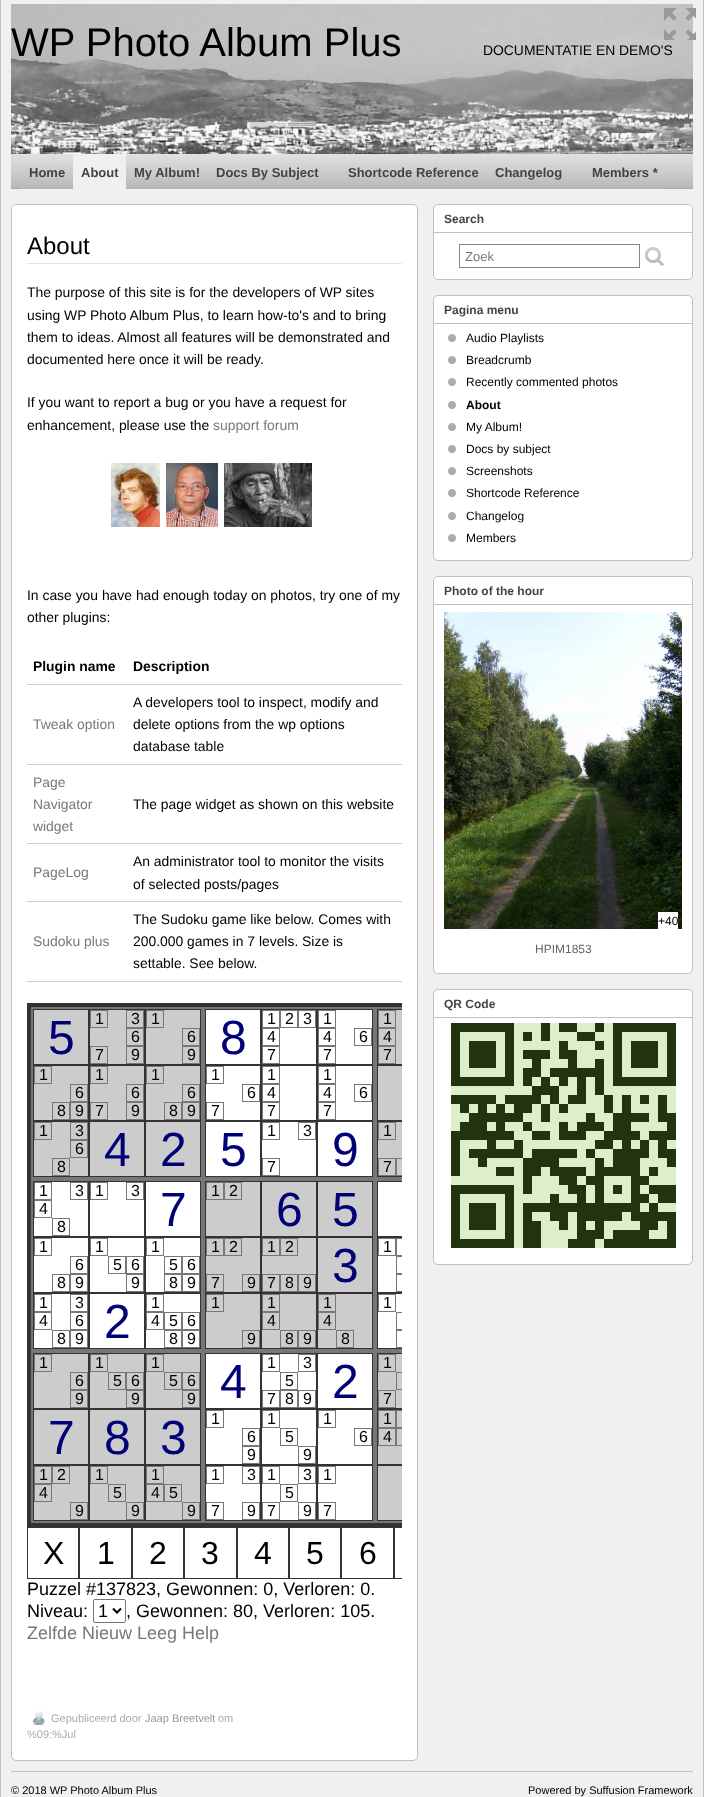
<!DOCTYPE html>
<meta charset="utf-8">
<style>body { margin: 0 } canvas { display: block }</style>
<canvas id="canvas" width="704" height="1797"></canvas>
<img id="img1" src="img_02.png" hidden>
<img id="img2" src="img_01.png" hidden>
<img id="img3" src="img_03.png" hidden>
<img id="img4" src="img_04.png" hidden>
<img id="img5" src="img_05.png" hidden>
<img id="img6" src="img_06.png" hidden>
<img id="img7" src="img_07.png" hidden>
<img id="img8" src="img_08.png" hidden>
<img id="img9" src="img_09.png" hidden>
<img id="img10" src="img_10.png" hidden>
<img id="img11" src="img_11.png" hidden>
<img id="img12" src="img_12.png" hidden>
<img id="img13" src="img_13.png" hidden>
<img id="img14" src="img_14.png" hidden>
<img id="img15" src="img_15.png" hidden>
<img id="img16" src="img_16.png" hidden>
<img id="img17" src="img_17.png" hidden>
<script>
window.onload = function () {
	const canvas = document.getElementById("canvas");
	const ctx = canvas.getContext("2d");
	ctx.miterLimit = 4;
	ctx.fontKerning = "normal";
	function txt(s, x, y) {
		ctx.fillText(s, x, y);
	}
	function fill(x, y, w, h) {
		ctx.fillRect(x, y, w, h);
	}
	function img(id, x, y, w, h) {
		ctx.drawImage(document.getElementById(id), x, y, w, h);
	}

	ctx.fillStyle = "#F0F0F0";
	fill(0, 0, 704, 1797);
	ctx.strokeStyle = "#C0C0C0";
	ctx.strokeRect(0.5, -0.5, 703, 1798);
	img("img1", 11, 4, 682, 150);
	img("img2", 664, 8, 32, 32);
	img("img3", 11, 154, 682, 34);
	ctx.fillStyle = "#A5A7AA";
	fill(11, 188, 682, 1);
	img("img4", 21, 154, 52, 35);
	ctx.fillStyle = "#F0F0F0";
	fill(73, 154, 53, 35);
	img("img5", 126, 154, 82, 35);
	img("img6", 208, 154, 132, 35);
	img("img7", 340, 154, 147, 35);
	img("img8", 487, 154, 97, 35);
	img("img9", 584, 154, 81, 35);
	ctx.fillStyle = "#FFFFFF";
	ctx.beginPath();
	ctx.roundRect(11.5, 204.5, 406, 1556, 4.5);
	ctx.fill();
	ctx.stroke();
	ctx.beginPath();
	ctx.moveTo(27, 263.5);
	ctx.lineTo(402, 263.5);
	ctx.strokeStyle = "#CCCCCC";
	ctx.setLineDash([1, 1]);
	ctx.stroke();
	img("img10", 111, 463, 49, 64);
	img("img11", 166, 463, 52, 64);
	img("img12", 224, 463, 88, 64);
	ctx.fillStyle = "#CCCCCC";
	fill(27, 684, 375, 1);
	fill(27, 764, 375, 1);
	fill(27, 843, 375, 1);
	fill(27, 901, 375, 1);
	fill(27, 981, 375, 1);
	ctx.save();
	ctx.beginPath();
	ctx.rect(27, 266, 375, 1425);
	ctx.clip();
	ctx.fillStyle = "#333333";
	ctx.beginPath();
	ctx.moveTo(27, 1003);
	ctx.lineTo(27, 1527);
	ctx.lineTo(417, 1527);
	ctx.lineTo(417, 1523);
	ctx.lineTo(31, 1523);
	ctx.lineTo(31, 1007);
	ctx.lineTo(417, 1007);
	ctx.lineTo(417, 1003);
	ctx.closePath();
	ctx.fill();
	ctx.restore();
	fill(34, 1010, 166, 166);
	ctx.strokeStyle = "#777777";
	ctx.lineWidth = 2;
	ctx.setLineDash([]);
	ctx.strokeRect(32, 1008, 170, 170);
	ctx.strokeStyle = "#333333";
	ctx.lineWidth = 1;
	ctx.strokeRect(33.5, 1009.5, 55, 55);
	ctx.strokeRect(89.5, 1009.5, 55, 55);
	ctx.strokeStyle = "#777777";
	ctx.strokeRect(90.5, 1010.5, 17, 17);
	ctx.strokeRect(126.5, 1010.5, 17, 17);
	ctx.strokeRect(126.5, 1028.5, 17, 17);
	ctx.strokeRect(90.5, 1046.5, 17, 17);
	ctx.strokeRect(126.5, 1046.5, 17, 17);
	ctx.strokeStyle = "#333333";
	ctx.strokeRect(145.5, 1009.5, 55, 55);
	ctx.strokeStyle = "#777777";
	ctx.strokeRect(146.5, 1010.5, 17, 17);
	ctx.strokeRect(182.5, 1028.5, 17, 17);
	ctx.strokeRect(182.5, 1046.5, 17, 17);
	ctx.strokeStyle = "#333333";
	ctx.strokeRect(33.5, 1065.5, 55, 55);
	ctx.strokeStyle = "#777777";
	ctx.strokeRect(34.5, 1066.5, 17, 17);
	ctx.strokeRect(70.5, 1084.5, 17, 17);
	ctx.strokeRect(52.5, 1102.5, 17, 17);
	ctx.strokeRect(70.5, 1102.5, 17, 17);
	ctx.strokeStyle = "#333333";
	ctx.strokeRect(89.5, 1065.5, 55, 55);
	ctx.strokeStyle = "#777777";
	ctx.strokeRect(90.5, 1066.5, 17, 17);
	ctx.strokeRect(126.5, 1084.5, 17, 17);
	ctx.strokeRect(90.5, 1102.5, 17, 17);
	ctx.strokeRect(126.5, 1102.5, 17, 17);
	ctx.strokeStyle = "#333333";
	ctx.strokeRect(145.5, 1065.5, 55, 55);
	ctx.strokeStyle = "#777777";
	ctx.strokeRect(146.5, 1066.5, 17, 17);
	ctx.strokeRect(182.5, 1084.5, 17, 17);
	ctx.strokeRect(164.5, 1102.5, 17, 17);
	ctx.strokeRect(182.5, 1102.5, 17, 17);
	ctx.strokeStyle = "#333333";
	ctx.strokeRect(33.5, 1121.5, 55, 55);
	ctx.strokeStyle = "#777777";
	ctx.strokeRect(34.5, 1122.5, 17, 17);
	ctx.strokeRect(70.5, 1122.5, 17, 17);
	ctx.strokeRect(70.5, 1140.5, 17, 17);
	ctx.strokeRect(52.5, 1158.5, 17, 17);
	ctx.strokeStyle = "#333333";
	ctx.strokeRect(89.5, 1121.5, 55, 55);
	ctx.strokeRect(145.5, 1121.5, 55, 55);
	ctx.strokeStyle = "#777777";
	ctx.lineWidth = 2;
	ctx.strokeRect(204, 1008, 170, 170);
	ctx.strokeStyle = "#333333";
	ctx.lineWidth = 1;
	ctx.strokeRect(205.5, 1009.5, 55, 55);
	ctx.strokeRect(261.5, 1009.5, 55, 55);
	ctx.strokeStyle = "#777777";
	ctx.strokeRect(262.5, 1010.5, 17, 17);
	ctx.strokeRect(280.5, 1010.5, 17, 17);
	ctx.strokeRect(298.5, 1010.5, 17, 17);
	ctx.strokeRect(262.5, 1028.5, 17, 17);
	ctx.strokeRect(262.5, 1046.5, 17, 17);
	ctx.strokeStyle = "#333333";
	ctx.strokeRect(317.5, 1009.5, 55, 55);
	ctx.strokeStyle = "#777777";
	ctx.strokeRect(318.5, 1010.5, 17, 17);
	ctx.strokeRect(318.5, 1028.5, 17, 17);
	ctx.strokeRect(354.5, 1028.5, 17, 17);
	ctx.strokeRect(318.5, 1046.5, 17, 17);
	ctx.strokeStyle = "#333333";
	ctx.strokeRect(205.5, 1065.5, 55, 55);
	ctx.strokeStyle = "#777777";
	ctx.strokeRect(206.5, 1066.5, 17, 17);
	ctx.strokeRect(242.5, 1084.5, 17, 17);
	ctx.strokeRect(206.5, 1102.5, 17, 17);
	ctx.strokeStyle = "#333333";
	ctx.strokeRect(261.5, 1065.5, 55, 55);
	ctx.strokeStyle = "#777777";
	ctx.strokeRect(262.5, 1066.5, 17, 17);
	ctx.strokeRect(262.5, 1084.5, 17, 17);
	ctx.strokeRect(262.5, 1102.5, 17, 17);
	ctx.strokeStyle = "#333333";
	ctx.strokeRect(317.5, 1065.5, 55, 55);
	ctx.strokeStyle = "#777777";
	ctx.strokeRect(318.5, 1066.5, 17, 17);
	ctx.strokeRect(318.5, 1084.5, 17, 17);
	ctx.strokeRect(354.5, 1084.5, 17, 17);
	ctx.strokeRect(318.5, 1102.5, 17, 17);
	ctx.strokeStyle = "#333333";
	ctx.strokeRect(205.5, 1121.5, 55, 55);
	ctx.strokeRect(261.5, 1121.5, 55, 55);
	ctx.strokeStyle = "#777777";
	ctx.strokeRect(262.5, 1122.5, 17, 17);
	ctx.strokeRect(298.5, 1122.5, 17, 17);
	ctx.strokeRect(262.5, 1158.5, 17, 17);
	ctx.strokeStyle = "#333333";
	ctx.strokeRect(317.5, 1121.5, 55, 55);
	fill(378, 1010, 24, 165);
	ctx.save();
	ctx.beginPath();
	ctx.rect(27, 266, 375, 1425);
	ctx.clip();
	ctx.fillStyle = "#777777";
	ctx.beginPath();
	ctx.moveTo(375, 1007);
	ctx.lineTo(375, 1179);
	ctx.lineTo(417, 1179);
	ctx.lineTo(417, 1177);
	ctx.lineTo(377, 1177);
	ctx.lineTo(377, 1009);
	ctx.lineTo(417, 1009);
	ctx.lineTo(417, 1007);
	ctx.closePath();
	ctx.fill();
	ctx.fillStyle = "#333333";
	ctx.beginPath();
	ctx.moveTo(377, 1009);
	ctx.lineTo(377, 1065);
	ctx.lineTo(417, 1065);
	ctx.lineTo(417, 1064);
	ctx.lineTo(378, 1064);
	ctx.lineTo(378, 1010);
	ctx.lineTo(417, 1010);
	ctx.lineTo(417, 1009);
	ctx.closePath();
	ctx.fill();
	ctx.restore();
	ctx.strokeStyle = "#777777";
	ctx.strokeRect(378.5, 1010.5, 17, 17);
	ctx.strokeRect(378.5, 1028.5, 17, 17);
	ctx.strokeRect(378.5, 1046.5, 17, 17);
	ctx.save();
	ctx.beginPath();
	ctx.rect(27, 266, 375, 1425);
	ctx.clip();
	ctx.fillStyle = "#333333";
	ctx.beginPath();
	ctx.moveTo(377, 1065);
	ctx.lineTo(377, 1121);
	ctx.lineTo(417, 1121);
	ctx.lineTo(417, 1120);
	ctx.lineTo(378, 1120);
	ctx.lineTo(378, 1066);
	ctx.lineTo(417, 1066);
	ctx.lineTo(417, 1065);
	ctx.closePath();
	ctx.fill();
	ctx.beginPath();
	ctx.moveTo(377, 1121);
	ctx.lineTo(377, 1177);
	ctx.lineTo(417, 1177);
	ctx.lineTo(417, 1176);
	ctx.lineTo(378, 1176);
	ctx.lineTo(378, 1122);
	ctx.lineTo(417, 1122);
	ctx.lineTo(417, 1121);
	ctx.closePath();
	ctx.fill();
	ctx.restore();
	ctx.strokeRect(378.5, 1122.5, 17, 17);
	ctx.strokeRect(378.5, 1158.5, 17, 17);
	ctx.save();
	ctx.beginPath();
	ctx.rect(27, 266, 375, 1425);
	ctx.clip();
	ctx.strokeRect(396.5, 1158.5, 17, 17);
	ctx.restore();
	ctx.lineWidth = 2;
	ctx.strokeRect(32, 1180, 170, 170);
	ctx.strokeStyle = "#333333";
	ctx.lineWidth = 1;
	ctx.strokeRect(33.5, 1181.5, 55, 55);
	ctx.strokeStyle = "#777777";
	ctx.strokeRect(34.5, 1182.5, 17, 17);
	ctx.strokeRect(70.5, 1182.5, 17, 17);
	ctx.strokeRect(34.5, 1200.5, 17, 17);
	ctx.strokeRect(52.5, 1218.5, 17, 17);
	ctx.strokeStyle = "#333333";
	ctx.strokeRect(89.5, 1181.5, 55, 55);
	ctx.strokeStyle = "#777777";
	ctx.strokeRect(90.5, 1182.5, 17, 17);
	ctx.strokeRect(126.5, 1182.5, 17, 17);
	ctx.strokeStyle = "#333333";
	ctx.strokeRect(145.5, 1181.5, 55, 55);
	ctx.strokeRect(33.5, 1237.5, 55, 55);
	ctx.strokeStyle = "#777777";
	ctx.strokeRect(34.5, 1238.5, 17, 17);
	ctx.strokeRect(70.5, 1256.5, 17, 17);
	ctx.strokeRect(52.5, 1274.5, 17, 17);
	ctx.strokeRect(70.5, 1274.5, 17, 17);
	ctx.strokeStyle = "#333333";
	ctx.strokeRect(89.5, 1237.5, 55, 55);
	ctx.strokeStyle = "#777777";
	ctx.strokeRect(90.5, 1238.5, 17, 17);
	ctx.strokeRect(108.5, 1256.5, 17, 17);
	ctx.strokeRect(126.5, 1256.5, 17, 17);
	ctx.strokeRect(126.5, 1274.5, 17, 17);
	ctx.strokeStyle = "#333333";
	ctx.strokeRect(145.5, 1237.5, 55, 55);
	ctx.strokeStyle = "#777777";
	ctx.strokeRect(146.5, 1238.5, 17, 17);
	ctx.strokeRect(164.5, 1256.5, 17, 17);
	ctx.strokeRect(182.5, 1256.5, 17, 17);
	ctx.strokeRect(164.5, 1274.5, 17, 17);
	ctx.strokeRect(182.5, 1274.5, 17, 17);
	ctx.strokeStyle = "#333333";
	ctx.strokeRect(33.5, 1293.5, 55, 55);
	ctx.strokeStyle = "#777777";
	ctx.strokeRect(34.5, 1294.5, 17, 17);
	ctx.strokeRect(70.5, 1294.5, 17, 17);
	ctx.strokeRect(34.5, 1312.5, 17, 17);
	ctx.strokeRect(70.5, 1312.5, 17, 17);
	ctx.strokeRect(52.5, 1330.5, 17, 17);
	ctx.strokeRect(70.5, 1330.5, 17, 17);
	ctx.strokeStyle = "#333333";
	ctx.strokeRect(89.5, 1293.5, 55, 55);
	ctx.strokeRect(145.5, 1293.5, 55, 55);
	ctx.strokeStyle = "#777777";
	ctx.strokeRect(146.5, 1294.5, 17, 17);
	ctx.strokeRect(146.5, 1312.5, 17, 17);
	ctx.strokeRect(164.5, 1312.5, 17, 17);
	ctx.strokeRect(182.5, 1312.5, 17, 17);
	ctx.strokeRect(164.5, 1330.5, 17, 17);
	ctx.strokeRect(182.5, 1330.5, 17, 17);
	fill(206, 1182, 166, 166);
	ctx.lineWidth = 2;
	ctx.strokeRect(204, 1180, 170, 170);
	ctx.strokeStyle = "#333333";
	ctx.lineWidth = 1;
	ctx.strokeRect(205.5, 1181.5, 55, 55);
	ctx.strokeStyle = "#777777";
	ctx.strokeRect(206.5, 1182.5, 17, 17);
	ctx.strokeRect(224.5, 1182.5, 17, 17);
	ctx.strokeStyle = "#333333";
	ctx.strokeRect(261.5, 1181.5, 55, 55);
	ctx.strokeRect(317.5, 1181.5, 55, 55);
	ctx.strokeRect(205.5, 1237.5, 55, 55);
	ctx.strokeStyle = "#777777";
	ctx.strokeRect(206.5, 1238.5, 17, 17);
	ctx.strokeRect(224.5, 1238.5, 17, 17);
	ctx.strokeRect(206.5, 1274.5, 17, 17);
	ctx.strokeRect(242.5, 1274.5, 17, 17);
	ctx.strokeStyle = "#333333";
	ctx.strokeRect(261.5, 1237.5, 55, 55);
	ctx.strokeStyle = "#777777";
	ctx.strokeRect(262.5, 1238.5, 17, 17);
	ctx.strokeRect(280.5, 1238.5, 17, 17);
	ctx.strokeRect(262.5, 1274.5, 17, 17);
	ctx.strokeRect(280.5, 1274.5, 17, 17);
	ctx.strokeRect(298.5, 1274.5, 17, 17);
	ctx.strokeStyle = "#333333";
	ctx.strokeRect(317.5, 1237.5, 55, 55);
	ctx.strokeRect(205.5, 1293.5, 55, 55);
	ctx.strokeStyle = "#777777";
	ctx.strokeRect(206.5, 1294.5, 17, 17);
	ctx.strokeRect(242.5, 1330.5, 17, 17);
	ctx.strokeStyle = "#333333";
	ctx.strokeRect(261.5, 1293.5, 55, 55);
	ctx.strokeStyle = "#777777";
	ctx.strokeRect(262.5, 1294.5, 17, 17);
	ctx.strokeRect(262.5, 1312.5, 17, 17);
	ctx.strokeRect(280.5, 1330.5, 17, 17);
	ctx.strokeRect(298.5, 1330.5, 17, 17);
	ctx.strokeStyle = "#333333";
	ctx.strokeRect(317.5, 1293.5, 55, 55);
	ctx.strokeStyle = "#777777";
	ctx.strokeRect(318.5, 1294.5, 17, 17);
	ctx.strokeRect(318.5, 1312.5, 17, 17);
	ctx.strokeRect(336.5, 1330.5, 17, 17);
	ctx.save();
	ctx.beginPath();
	ctx.rect(27, 266, 375, 1425);
	ctx.clip();
	ctx.fillStyle = "#777777";
	ctx.beginPath();
	ctx.moveTo(375, 1179);
	ctx.lineTo(375, 1351);
	ctx.lineTo(417, 1351);
	ctx.lineTo(417, 1349);
	ctx.lineTo(377, 1349);
	ctx.lineTo(377, 1181);
	ctx.lineTo(417, 1181);
	ctx.lineTo(417, 1179);
	ctx.closePath();
	ctx.fill();
	ctx.fillStyle = "#333333";
	ctx.beginPath();
	ctx.moveTo(377, 1181);
	ctx.lineTo(377, 1237);
	ctx.lineTo(417, 1237);
	ctx.lineTo(417, 1236);
	ctx.lineTo(378, 1236);
	ctx.lineTo(378, 1182);
	ctx.lineTo(417, 1182);
	ctx.lineTo(417, 1181);
	ctx.closePath();
	ctx.fill();
	ctx.beginPath();
	ctx.moveTo(377, 1237);
	ctx.lineTo(377, 1293);
	ctx.lineTo(417, 1293);
	ctx.lineTo(417, 1292);
	ctx.lineTo(378, 1292);
	ctx.lineTo(378, 1238);
	ctx.lineTo(417, 1238);
	ctx.lineTo(417, 1237);
	ctx.closePath();
	ctx.fill();
	ctx.restore();
	ctx.strokeRect(378.5, 1238.5, 17, 17);
	ctx.save();
	ctx.beginPath();
	ctx.rect(27, 266, 375, 1425);
	ctx.clip();
	ctx.strokeRect(396.5, 1238.5, 17, 17);
	ctx.strokeRect(396.5, 1256.5, 17, 17);
	ctx.strokeRect(396.5, 1274.5, 17, 17);
	ctx.fillStyle = "#333333";
	ctx.beginPath();
	ctx.moveTo(377, 1293);
	ctx.lineTo(377, 1349);
	ctx.lineTo(417, 1349);
	ctx.lineTo(417, 1348);
	ctx.lineTo(378, 1348);
	ctx.lineTo(378, 1294);
	ctx.lineTo(417, 1294);
	ctx.lineTo(417, 1293);
	ctx.closePath();
	ctx.fill();
	ctx.restore();
	ctx.strokeRect(378.5, 1294.5, 17, 17);
	ctx.save();
	ctx.beginPath();
	ctx.rect(27, 266, 375, 1425);
	ctx.clip();
	ctx.strokeRect(396.5, 1312.5, 17, 17);
	ctx.strokeRect(396.5, 1330.5, 17, 17);
	ctx.restore();
	fill(34, 1354, 166, 166);
	ctx.lineWidth = 2;
	ctx.strokeRect(32, 1352, 170, 170);
	ctx.strokeStyle = "#333333";
	ctx.lineWidth = 1;
	ctx.strokeRect(33.5, 1353.5, 55, 55);
	ctx.strokeStyle = "#777777";
	ctx.strokeRect(34.5, 1354.5, 17, 17);
	ctx.strokeRect(70.5, 1372.5, 17, 17);
	ctx.strokeRect(70.5, 1390.5, 17, 17);
	ctx.strokeStyle = "#333333";
	ctx.strokeRect(89.5, 1353.5, 55, 55);
	ctx.strokeStyle = "#777777";
	ctx.strokeRect(90.5, 1354.5, 17, 17);
	ctx.strokeRect(108.5, 1372.5, 17, 17);
	ctx.strokeRect(126.5, 1372.5, 17, 17);
	ctx.strokeRect(126.5, 1390.5, 17, 17);
	ctx.strokeStyle = "#333333";
	ctx.strokeRect(145.5, 1353.5, 55, 55);
	ctx.strokeStyle = "#777777";
	ctx.strokeRect(146.5, 1354.5, 17, 17);
	ctx.strokeRect(164.5, 1372.5, 17, 17);
	ctx.strokeRect(182.5, 1372.5, 17, 17);
	ctx.strokeRect(182.5, 1390.5, 17, 17);
	ctx.strokeStyle = "#333333";
	ctx.strokeRect(33.5, 1409.5, 55, 55);
	ctx.strokeRect(89.5, 1409.5, 55, 55);
	ctx.strokeRect(145.5, 1409.5, 55, 55);
	ctx.strokeRect(33.5, 1465.5, 55, 55);
	ctx.strokeStyle = "#777777";
	ctx.strokeRect(34.5, 1466.5, 17, 17);
	ctx.strokeRect(52.5, 1466.5, 17, 17);
	ctx.strokeRect(34.5, 1484.5, 17, 17);
	ctx.strokeRect(70.5, 1502.5, 17, 17);
	ctx.strokeStyle = "#333333";
	ctx.strokeRect(89.5, 1465.5, 55, 55);
	ctx.strokeStyle = "#777777";
	ctx.strokeRect(90.5, 1466.5, 17, 17);
	ctx.strokeRect(108.5, 1484.5, 17, 17);
	ctx.strokeRect(126.5, 1502.5, 17, 17);
	ctx.strokeStyle = "#333333";
	ctx.strokeRect(145.5, 1465.5, 55, 55);
	ctx.strokeStyle = "#777777";
	ctx.strokeRect(146.5, 1466.5, 17, 17);
	ctx.strokeRect(146.5, 1484.5, 17, 17);
	ctx.strokeRect(164.5, 1484.5, 17, 17);
	ctx.strokeRect(182.5, 1502.5, 17, 17);
	ctx.lineWidth = 2;
	ctx.strokeRect(204, 1352, 170, 170);
	ctx.strokeStyle = "#333333";
	ctx.lineWidth = 1;
	ctx.strokeRect(205.5, 1353.5, 55, 55);
	ctx.strokeRect(261.5, 1353.5, 55, 55);
	ctx.strokeStyle = "#777777";
	ctx.strokeRect(262.5, 1354.5, 17, 17);
	ctx.strokeRect(298.5, 1354.5, 17, 17);
	ctx.strokeRect(280.5, 1372.5, 17, 17);
	ctx.strokeRect(262.5, 1390.5, 17, 17);
	ctx.strokeRect(280.5, 1390.5, 17, 17);
	ctx.strokeRect(298.5, 1390.5, 17, 17);
	ctx.strokeStyle = "#333333";
	ctx.strokeRect(317.5, 1353.5, 55, 55);
	ctx.strokeRect(205.5, 1409.5, 55, 55);
	ctx.strokeStyle = "#777777";
	ctx.strokeRect(206.5, 1410.5, 17, 17);
	ctx.strokeRect(242.5, 1428.5, 17, 17);
	ctx.strokeRect(242.5, 1446.5, 17, 17);
	ctx.strokeStyle = "#333333";
	ctx.strokeRect(261.5, 1409.5, 55, 55);
	ctx.strokeStyle = "#777777";
	ctx.strokeRect(262.5, 1410.5, 17, 17);
	ctx.strokeRect(280.5, 1428.5, 17, 17);
	ctx.strokeRect(298.5, 1446.5, 17, 17);
	ctx.strokeStyle = "#333333";
	ctx.strokeRect(317.5, 1409.5, 55, 55);
	ctx.strokeStyle = "#777777";
	ctx.strokeRect(318.5, 1410.5, 17, 17);
	ctx.strokeRect(354.5, 1428.5, 17, 17);
	ctx.strokeStyle = "#333333";
	ctx.strokeRect(205.5, 1465.5, 55, 55);
	ctx.strokeStyle = "#777777";
	ctx.strokeRect(206.5, 1466.5, 17, 17);
	ctx.strokeRect(242.5, 1466.5, 17, 17);
	ctx.strokeRect(206.5, 1502.5, 17, 17);
	ctx.strokeRect(242.5, 1502.5, 17, 17);
	ctx.strokeStyle = "#333333";
	ctx.strokeRect(261.5, 1465.5, 55, 55);
	ctx.strokeStyle = "#777777";
	ctx.strokeRect(262.5, 1466.5, 17, 17);
	ctx.strokeRect(298.5, 1466.5, 17, 17);
	ctx.strokeRect(280.5, 1484.5, 17, 17);
	ctx.strokeRect(262.5, 1502.5, 17, 17);
	ctx.strokeRect(298.5, 1502.5, 17, 17);
	ctx.strokeStyle = "#333333";
	ctx.strokeRect(317.5, 1465.5, 55, 55);
	ctx.strokeStyle = "#777777";
	ctx.strokeRect(318.5, 1466.5, 17, 17);
	ctx.strokeRect(318.5, 1502.5, 17, 17);
	fill(378, 1354, 24, 166);
	ctx.save();
	ctx.beginPath();
	ctx.rect(27, 266, 375, 1425);
	ctx.clip();
	ctx.fillStyle = "#777777";
	ctx.beginPath();
	ctx.moveTo(375, 1351);
	ctx.lineTo(375, 1523);
	ctx.lineTo(417, 1523);
	ctx.lineTo(417, 1521);
	ctx.lineTo(377, 1521);
	ctx.lineTo(377, 1353);
	ctx.lineTo(417, 1353);
	ctx.lineTo(417, 1351);
	ctx.closePath();
	ctx.fill();
	ctx.fillStyle = "#333333";
	ctx.beginPath();
	ctx.moveTo(377, 1353);
	ctx.lineTo(377, 1409);
	ctx.lineTo(417, 1409);
	ctx.lineTo(417, 1408);
	ctx.lineTo(378, 1408);
	ctx.lineTo(378, 1354);
	ctx.lineTo(417, 1354);
	ctx.lineTo(417, 1353);
	ctx.closePath();
	ctx.fill();
	ctx.restore();
	ctx.strokeRect(378.5, 1354.5, 17, 17);
	ctx.save();
	ctx.beginPath();
	ctx.rect(27, 266, 375, 1425);
	ctx.clip();
	ctx.strokeRect(396.5, 1372.5, 17, 17);
	ctx.restore();
	ctx.strokeRect(378.5, 1390.5, 17, 17);
	ctx.save();
	ctx.beginPath();
	ctx.rect(27, 266, 375, 1425);
	ctx.clip();
	ctx.fillStyle = "#333333";
	ctx.beginPath();
	ctx.moveTo(377, 1409);
	ctx.lineTo(377, 1465);
	ctx.lineTo(417, 1465);
	ctx.lineTo(417, 1464);
	ctx.lineTo(378, 1464);
	ctx.lineTo(378, 1410);
	ctx.lineTo(417, 1410);
	ctx.lineTo(417, 1409);
	ctx.closePath();
	ctx.fill();
	ctx.restore();
	ctx.strokeRect(378.5, 1410.5, 17, 17);
	ctx.save();
	ctx.beginPath();
	ctx.rect(27, 266, 375, 1425);
	ctx.clip();
	ctx.strokeRect(396.5, 1410.5, 17, 17);
	ctx.restore();
	ctx.strokeRect(378.5, 1428.5, 17, 17);
	ctx.save();
	ctx.beginPath();
	ctx.rect(27, 266, 375, 1425);
	ctx.clip();
	ctx.strokeRect(396.5, 1428.5, 17, 17);
	ctx.fillStyle = "#333333";
	ctx.beginPath();
	ctx.moveTo(377, 1465);
	ctx.lineTo(377, 1521);
	ctx.lineTo(417, 1521);
	ctx.lineTo(417, 1520);
	ctx.lineTo(378, 1520);
	ctx.lineTo(378, 1466);
	ctx.lineTo(417, 1466);
	ctx.lineTo(417, 1465);
	ctx.closePath();
	ctx.fill();
	ctx.restore();
	ctx.strokeStyle = "#333333";
	ctx.strokeRect(27.5, 1527.5, 51, 51);
	ctx.strokeRect(79.5, 1527.5, 52, 51);
	ctx.strokeRect(132.5, 1527.5, 51, 51);
	ctx.strokeRect(184.5, 1527.5, 52, 51);
	ctx.strokeRect(237.5, 1527.5, 51, 51);
	ctx.strokeRect(289.5, 1527.5, 51, 51);
	ctx.strokeRect(341.5, 1527.5, 52, 51);
	ctx.save();
	ctx.beginPath();
	ctx.rect(27, 266, 375, 1425);
	ctx.clip();
	ctx.fillStyle = "#333333";
	ctx.beginPath();
	ctx.moveTo(394, 1527);
	ctx.lineTo(394, 1579);
	ctx.lineTo(417, 1579);
	ctx.lineTo(417, 1578);
	ctx.lineTo(395, 1578);
	ctx.lineTo(395, 1528);
	ctx.lineTo(417, 1528);
	ctx.lineTo(417, 1527);
	ctx.closePath();
	ctx.fill();
	ctx.restore();
	ctx.beginPath();
	ctx.roundRect(93.5, 1599.5, 32, 23, 1.5);
	ctx.strokeStyle = "#767676";
	ctx.stroke();
	ctx.beginPath();
	ctx.moveTo(113, 1608.5);
	ctx.lineTo(117, 1612.5);
	ctx.lineTo(121, 1608.5);
	ctx.strokeStyle = "#000000";
	ctx.lineWidth = 2;
	ctx.stroke();
	img("img13", 32, 1711, 13, 14);
	ctx.fillStyle = "#FFFFFF";
	ctx.beginPath();
	ctx.roundRect(433.5, 204.5, 259, 75, 4.5);
	ctx.fill();
	ctx.strokeStyle = "#C0C0C0";
	ctx.lineWidth = 1;
	ctx.stroke();
	ctx.fillStyle = "#C0C0C0";
	fill(434, 232, 258, 1);
	ctx.strokeStyle = "#888888";
	ctx.strokeRect(459.5, 244.5, 180, 23);
	img("img14", 645, 247, 19, 19);
	ctx.fillStyle = "#FFFFFF";
	ctx.beginPath();
	ctx.roundRect(433.5, 295.5, 259, 265, 4.5);
	ctx.fill();
	ctx.strokeStyle = "#C0C0C0";
	ctx.stroke();
	ctx.fillStyle = "#C0C0C0";
	fill(434, 323, 258, 1);
	img("img15", 448, 334, 8, 8);
	img("img15", 448, 356, 8, 8);
	img("img15", 448, 378, 8, 8);
	img("img15", 448, 401, 8, 8);
	img("img15", 448, 423, 8, 8);
	img("img15", 448, 445, 8, 8);
	img("img15", 448, 467, 8, 8);
	img("img15", 448, 489, 8, 8);
	img("img15", 448, 512, 8, 8);
	img("img15", 448, 534, 8, 8);
	ctx.fillStyle = "#FFFFFF";
	ctx.beginPath();
	ctx.roundRect(433.5, 576.5, 259, 397, 4.5);
	ctx.fill();
	ctx.stroke();
	ctx.fillStyle = "#C0C0C0";
	fill(434, 604, 258, 1);
	img("img16", 444, 612, 238, 317);
	ctx.fillStyle = "#FFFFFF";
	fill(658, 912, 20, 17);
	ctx.beginPath();
	ctx.roundRect(433.5, 989.5, 259, 275, 4.5);
	ctx.fill();
	ctx.stroke();
	ctx.fillStyle = "#C0C0C0";
	fill(434, 1017, 258, 1);
	img("img17", 451, 1023, 225, 225);
	fill(11, 1771, 682, 1);
	ctx.font = "40px Liberation Sans";
	ctx.fillStyle = "#000000";
	txt("WP Photo Album Plus", 11, 56);
	ctx.font = "13.9px Liberation Sans";
	txt("DOCUMENTATIE EN DEMO'S", 483, 55);
	ctx.font = "bold 13px Liberation Sans";
	ctx.fillStyle = "#444444";
	txt("Home", 29, 177);
	txt("About", 81, 177);
	txt("My Album!", 134, 177);
	txt("Docs By Subject", 216, 177);
	txt("Shortcode Reference", 348, 177);
	txt("Changelog", 495, 177);
	txt("Members *", 592, 177);
	ctx.font = "24px Liberation Sans";
	ctx.fillStyle = "#000000";
	txt("About", 27, 254);
	ctx.font = "13.9px Liberation Sans";
	txt("The purpose of this site is for the developers of WP sites", 27, 297);
	txt("using WP Photo Album Plus, to learn how-to's and to bring", 27, 320);
	txt("them to ideas. Almost all features will be demonstrated and", 27, 342);
	txt("documented here once it will be ready.", 27, 364);
	txt("If you want to report a bug or you have a request for", 27, 407);
	txt("enhancement, please use the", 27, 430);
	ctx.fillStyle = "#787878";
	txt("support forum", 213, 430);
	ctx.fillStyle = "#000000";
	txt("In case you have had enough today on photos, try one of my", 27, 600);
	txt("other plugins:", 27, 622);
	ctx.font = "bold 13.9px Liberation Sans";
	txt("Plugin name", 33, 671);
	txt("Description", 133, 671);
	ctx.font = "13.9px Liberation Sans";
	ctx.fillStyle = "#787878";
	txt("Tweak option", 33, 729);
	ctx.fillStyle = "#000000";
	txt("A developers tool to inspect, modify and", 133, 707);
	txt("delete options from the wp options", 133, 729);
	txt("database table", 133, 751);
	ctx.fillStyle = "#787878";
	txt("Page", 33, 787);
	txt("Navigator", 33, 809);
	txt("widget", 33, 831);
	ctx.fillStyle = "#000000";
	txt("The page widget as shown on this website", 133, 809);
	ctx.fillStyle = "#787878";
	txt("PageLog", 33, 877);
	ctx.fillStyle = "#000000";
	txt("An administrator tool to monitor the visits", 133, 866);
	txt("of selected posts/pages", 133, 889);
	ctx.fillStyle = "#787878";
	txt("Sudoku plus", 33, 946);
	ctx.fillStyle = "#000000";
	txt("The Sudoku game like below. Comes with", 133, 924);
	txt("200.000 games in 7 levels. Size is", 133, 946);
	txt("settable. See below.", 133, 968);
	ctx.font = "48px Liberation Sans";
	ctx.fillStyle = "#000077";
	txt("5", 48, 1054);
	ctx.font = "16px Liberation Sans";
	ctx.fillStyle = "#000000";
	txt("1", 95, 1024);
	txt("3", 131, 1024);
	txt("6", 131, 1042);
	txt("7", 95, 1060);
	txt("9", 131, 1060);
	txt("1", 151, 1024);
	txt("6", 187, 1042);
	txt("9", 187, 1060);
	txt("1", 39, 1080);
	txt("6", 75, 1098);
	txt("8", 57, 1116);
	txt("9", 75, 1116);
	txt("1", 95, 1080);
	txt("6", 131, 1098);
	txt("7", 95, 1116);
	txt("9", 131, 1116);
	txt("1", 151, 1080);
	txt("6", 187, 1098);
	txt("8", 169, 1116);
	txt("9", 187, 1116);
	txt("1", 39, 1136);
	txt("3", 75, 1136);
	txt("6", 75, 1154);
	txt("8", 57, 1172);
	ctx.font = "48px Liberation Sans";
	ctx.fillStyle = "#000077";
	txt("4", 104, 1166);
	txt("2", 160, 1166);
	txt("8", 220, 1054);
	ctx.font = "16px Liberation Sans";
	ctx.fillStyle = "#000000";
	txt("1", 267, 1024);
	txt("2", 285, 1024);
	txt("3", 303, 1024);
	txt("4", 267, 1042);
	txt("7", 267, 1060);
	txt("1", 323, 1024);
	txt("4", 323, 1042);
	txt("6", 359, 1042);
	txt("7", 323, 1060);
	txt("1", 211, 1080);
	txt("6", 247, 1098);
	txt("7", 211, 1116);
	txt("1", 267, 1080);
	txt("4", 267, 1098);
	txt("7", 267, 1116);
	txt("1", 323, 1080);
	txt("4", 323, 1098);
	txt("6", 359, 1098);
	txt("7", 323, 1116);
	ctx.font = "48px Liberation Sans";
	ctx.fillStyle = "#000077";
	txt("5", 220, 1166);
	ctx.font = "16px Liberation Sans";
	ctx.fillStyle = "#000000";
	txt("1", 267, 1136);
	txt("3", 303, 1136);
	txt("7", 267, 1172);
	ctx.font = "48px Liberation Sans";
	ctx.fillStyle = "#000077";
	txt("9", 332, 1166);
	ctx.font = "16px Liberation Sans";
	ctx.fillStyle = "#000000";
	txt("1", 383, 1024);
	txt("4", 383, 1042);
	txt("7", 383, 1060);
	txt("1", 383, 1136);
	txt("7", 383, 1172);
	txt("1", 39, 1196);
	txt("3", 75, 1196);
	txt("4", 39, 1214);
	txt("8", 57, 1232);
	txt("1", 95, 1196);
	txt("3", 131, 1196);
	ctx.font = "48px Liberation Sans";
	ctx.fillStyle = "#000077";
	txt("7", 160, 1226);
	ctx.font = "16px Liberation Sans";
	ctx.fillStyle = "#000000";
	txt("1", 39, 1252);
	txt("6", 75, 1270);
	txt("8", 57, 1288);
	txt("9", 75, 1288);
	txt("1", 95, 1252);
	txt("5", 113, 1270);
	txt("6", 131, 1270);
	txt("9", 131, 1288);
	txt("1", 151, 1252);
	txt("5", 169, 1270);
	txt("6", 187, 1270);
	txt("8", 169, 1288);
	txt("9", 187, 1288);
	txt("1", 39, 1308);
	txt("3", 75, 1308);
	txt("4", 39, 1326);
	txt("6", 75, 1326);
	txt("8", 57, 1344);
	txt("9", 75, 1344);
	ctx.font = "48px Liberation Sans";
	ctx.fillStyle = "#000077";
	txt("2", 104, 1338);
	ctx.font = "16px Liberation Sans";
	ctx.fillStyle = "#000000";
	txt("1", 151, 1308);
	txt("4", 151, 1326);
	txt("5", 169, 1326);
	txt("6", 187, 1326);
	txt("8", 169, 1344);
	txt("9", 187, 1344);
	txt("1", 211, 1196);
	txt("2", 229, 1196);
	ctx.font = "48px Liberation Sans";
	ctx.fillStyle = "#000077";
	txt("6", 276, 1226);
	txt("5", 332, 1226);
	ctx.font = "16px Liberation Sans";
	ctx.fillStyle = "#000000";
	txt("1", 211, 1252);
	txt("2", 229, 1252);
	txt("7", 211, 1288);
	txt("9", 247, 1288);
	txt("1", 267, 1252);
	txt("2", 285, 1252);
	txt("7", 267, 1288);
	txt("8", 285, 1288);
	txt("9", 303, 1288);
	ctx.font = "48px Liberation Sans";
	ctx.fillStyle = "#000077";
	txt("3", 332, 1282);
	ctx.font = "16px Liberation Sans";
	ctx.fillStyle = "#000000";
	txt("1", 211, 1308);
	txt("9", 247, 1344);
	txt("1", 267, 1308);
	txt("4", 267, 1326);
	txt("8", 285, 1344);
	txt("9", 303, 1344);
	txt("1", 323, 1308);
	txt("4", 323, 1326);
	txt("8", 341, 1344);
	txt("1", 383, 1252);
	txt("1", 383, 1308);
	txt("1", 39, 1368);
	txt("6", 75, 1386);
	txt("9", 75, 1404);
	txt("1", 95, 1368);
	txt("5", 113, 1386);
	txt("6", 131, 1386);
	txt("9", 131, 1404);
	txt("1", 151, 1368);
	txt("5", 169, 1386);
	txt("6", 187, 1386);
	txt("9", 187, 1404);
	ctx.font = "48px Liberation Sans";
	ctx.fillStyle = "#000077";
	txt("7", 48, 1454);
	txt("8", 104, 1454);
	txt("3", 160, 1454);
	ctx.font = "16px Liberation Sans";
	ctx.fillStyle = "#000000";
	txt("1", 39, 1480);
	txt("2", 57, 1480);
	txt("4", 39, 1498);
	txt("9", 75, 1516);
	txt("1", 95, 1480);
	txt("5", 113, 1498);
	txt("9", 131, 1516);
	txt("1", 151, 1480);
	txt("4", 151, 1498);
	txt("5", 169, 1498);
	txt("9", 187, 1516);
	ctx.font = "48px Liberation Sans";
	ctx.fillStyle = "#000077";
	txt("4", 220, 1398);
	ctx.font = "16px Liberation Sans";
	ctx.fillStyle = "#000000";
	txt("1", 267, 1368);
	txt("3", 303, 1368);
	txt("5", 285, 1386);
	txt("7", 267, 1404);
	txt("8", 285, 1404);
	txt("9", 303, 1404);
	ctx.font = "48px Liberation Sans";
	ctx.fillStyle = "#000077";
	txt("2", 332, 1398);
	ctx.font = "16px Liberation Sans";
	ctx.fillStyle = "#000000";
	txt("1", 211, 1424);
	txt("6", 247, 1442);
	txt("9", 247, 1460);
	txt("1", 267, 1424);
	txt("5", 285, 1442);
	txt("9", 303, 1460);
	txt("1", 323, 1424);
	txt("6", 359, 1442);
	txt("1", 211, 1480);
	txt("3", 247, 1480);
	txt("7", 211, 1516);
	txt("9", 247, 1516);
	txt("1", 267, 1480);
	txt("3", 303, 1480);
	txt("5", 285, 1498);
	txt("7", 267, 1516);
	txt("9", 303, 1516);
	txt("1", 323, 1480);
	txt("7", 323, 1516);
	txt("1", 383, 1368);
	txt("7", 383, 1404);
	txt("1", 383, 1424);
	txt("4", 383, 1442);
	ctx.font = "32px Liberation Sans";
	txt("X", 43, 1564);
	txt("1", 97, 1564);
	txt("2", 149, 1564);
	txt("3", 201, 1564);
	txt("4", 254, 1564);
	txt("5", 306, 1564);
	txt("6", 359, 1564);
	ctx.font = "18px Liberation Sans";
	txt("Puzzel #137823, Gewonnen: 0, Verloren: 0.", 27, 1595);
	txt("Niveau:", 27, 1617);
	txt("1", 98, 1617);
	txt(", Gewonnen: 80, Verloren: 105.", 126, 1617);
	ctx.fillStyle = "#787878";
	txt("Zelfde Nieuw Leeg Help", 27, 1639);
	ctx.font = "11px Liberation Sans";
	ctx.fillStyle = "#AAAAAA";
	txt("Gepubliceerd door", 51, 1722);
	ctx.fillStyle = "#999999";
	txt("Jaap Breetvelt", 145, 1722);
	ctx.fillStyle = "#AAAAAA";
	txt("om", 218, 1722);
	txt("%09:%Jul", 27, 1738);
	ctx.font = "bold 12px Liberation Sans";
	ctx.fillStyle = "#444444";
	txt("Search", 444, 223);
	ctx.font = "13px Liberation Sans";
	ctx.fillStyle = "#787878";
	txt("Zoek", 465, 261);
	ctx.font = "bold 12px Liberation Sans";
	ctx.fillStyle = "#444444";
	txt("Pagina menu", 444, 314);
	ctx.font = "12px Liberation Sans";
	ctx.fillStyle = "#000000";
	txt("Audio Playlists", 466, 342);
	txt("Breadcrumb", 466, 364);
	txt("Recently commented photos", 466, 386);
	ctx.font = "bold 12px Liberation Sans";
	txt("About", 466, 409);
	ctx.font = "12px Liberation Sans";
	txt("My Album!", 466, 431);
	txt("Docs by subject", 466, 453);
	txt("Screenshots", 466, 475);
	txt("Shortcode Reference", 466, 497);
	txt("Changelog", 466, 520);
	txt("Members", 466, 542);
	ctx.font = "bold 12px Liberation Sans";
	ctx.fillStyle = "#444444";
	txt("Photo of the hour", 444, 595);
	ctx.font = "12px Liberation Sans";
	ctx.fillStyle = "#000000";
	txt("+40", 658, 925);
	ctx.fillStyle = "#666666";
	txt("HPIM1853", 535, 953);
	ctx.font = "bold 12px Liberation Sans";
	ctx.fillStyle = "#444444";
	txt("QR Code", 444, 1008);
	ctx.font = "11px Liberation Sans";
	ctx.fillStyle = "#000000";
	txt("© 2018 WP Photo Album Plus", 11, 1794);
	txt("Powered by Suffusion Framework", 528, 1794);
};
</script>
